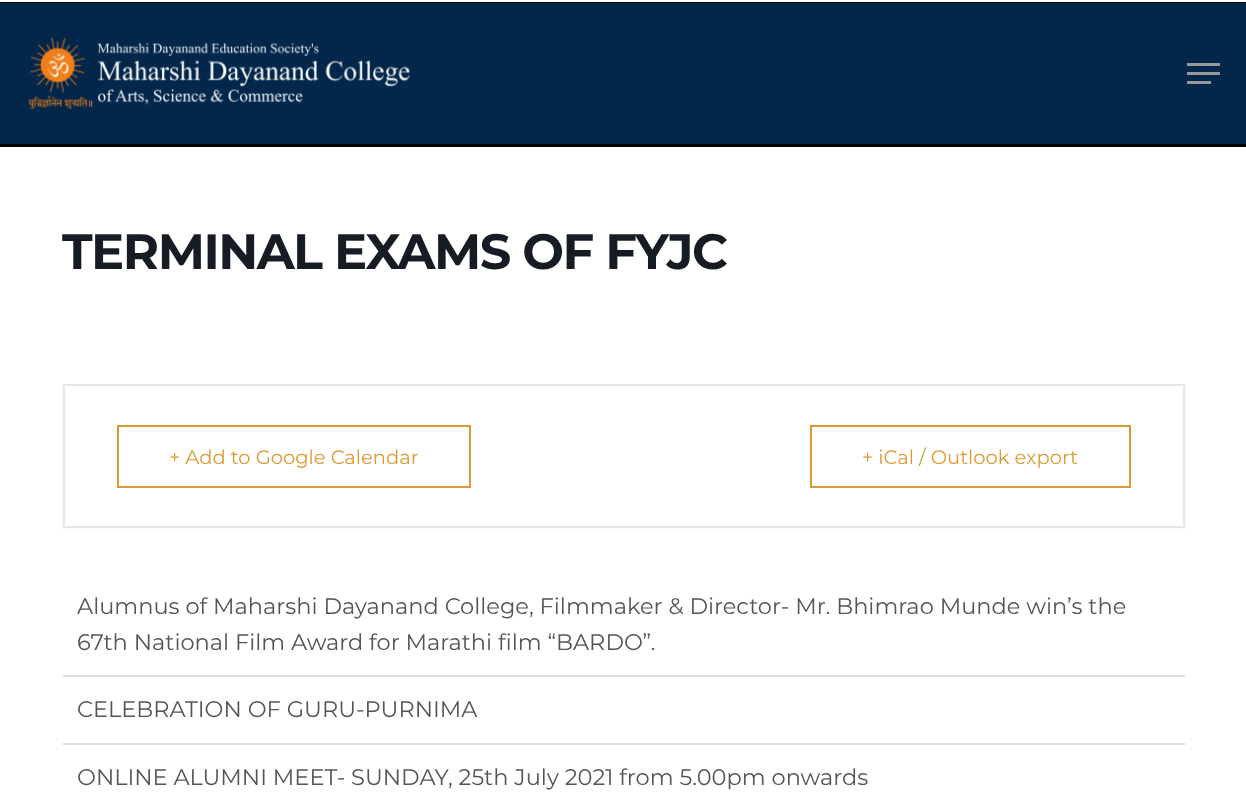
<!DOCTYPE html>
<meta charset="utf-8">
<style>body { margin: 0 } canvas { display: block }</style>
<canvas id="canvas" width="1246" height="807"></canvas>
<img id="img1" src="img_01.png" hidden>
<script>
window.onload = function () {
	const canvas = document.getElementById("canvas");
	const ctx = canvas.getContext("2d");
	ctx.miterLimit = 4;
	ctx.fontKerning = "normal";
	function txt(s, x, y) {
		ctx.fillText(s, x, y);
	}
	function fill(x, y, w, h) {
		ctx.fillRect(x, y, w, h);
	}
	function img(id, x, y, w, h) {
		ctx.drawImage(document.getElementById(id), x, y, w, h);
	}

	ctx.fillStyle = "#FFFFFF";
	fill(0, 0, 1246, 807);
	ctx.fillStyle = "#03274B";
	fill(0, 3, 1246, 141);
	ctx.fillStyle = "#000000";
	fill(0, 2, 1246, 1);
	fill(0, 144, 1246, 3);
	img("img1", 28, 37, 382, 73);
	ctx.fillStyle = "#999999";
	fill(1187, 63, 33, 3);
	fill(1187, 81, 24, 3);
	fill(1187, 72, 33, 3);
	ctx.fillStyle = "#FBFBFB";
	fill(63, 528, 1122, 3);
	ctx.strokeStyle = "#E6E6E6";
	ctx.lineWidth = 2;
	ctx.strokeRect(64, 385, 1120, 142);
	ctx.strokeStyle = "#DD9933";
	ctx.strokeRect(118, 426, 352, 61);
	ctx.strokeRect(811, 426, 319, 61);
	ctx.fillStyle = "#DDDDDD";
	fill(63, 675, 1122, 2);
	fill(63, 743, 1122, 2);
	ctx.letterSpacing = "-1.5px";
	ctx.font = "bold 49.5px Montserrat";
	ctx.fillStyle = "#171C24";
	txt("TERMINAL EXAMS OF FYJC", 62, 269);
	ctx.letterSpacing = "0px";
	ctx.font = "19.5px Montserrat";
	ctx.fillStyle = "#DD9933";
	txt("+ Add to Google Calendar", 169, 464);
	txt("+ iCal / Outlook export", 862, 464);
	ctx.font = "22.5px Montserrat";
	ctx.fillStyle = "#555555";
	txt("Alumnus of Maharshi Dayanand College, Filmmaker & Director- Mr. Bhimrao Munde win’s the", 77, 614);
	txt("67th National Film Award for Marathi film “BARDO”.", 77, 650);
	txt("CELEBRATION OF GURU-PURNIMA", 77, 717);
	txt("ONLINE ALUMNI MEET- SUNDAY, 25th July 2021 from 5.00pm onwards", 77, 785);
};
</script>
